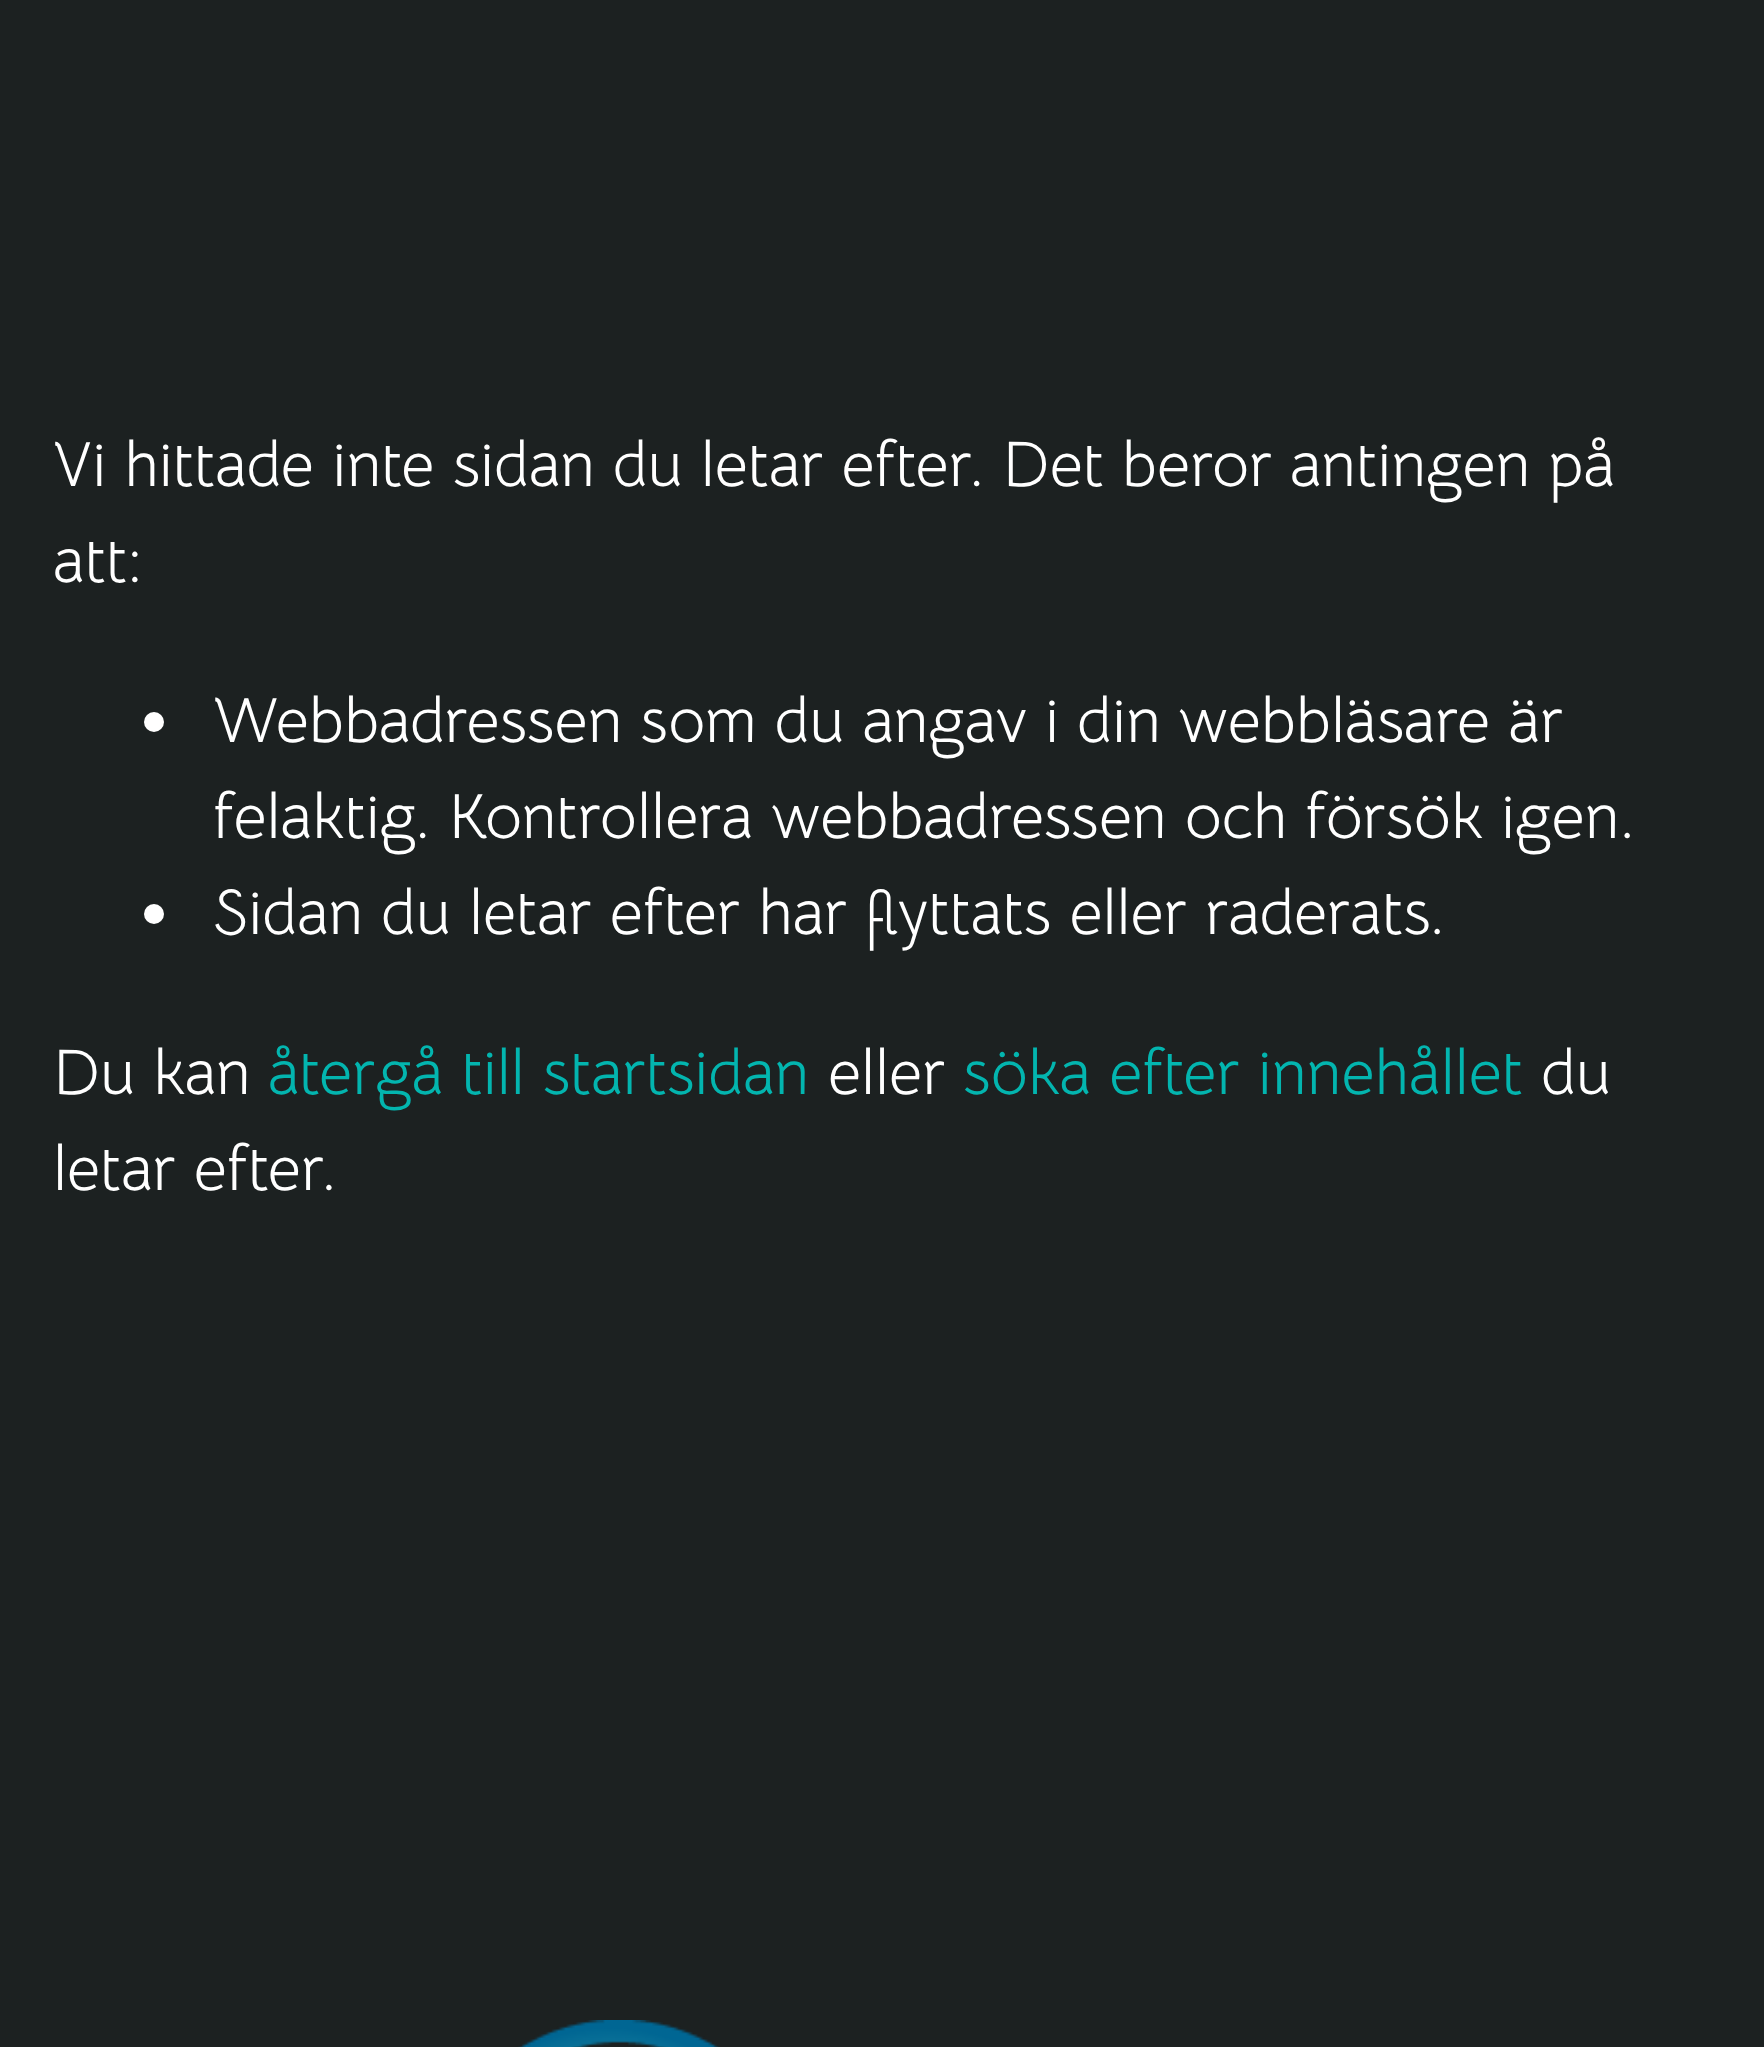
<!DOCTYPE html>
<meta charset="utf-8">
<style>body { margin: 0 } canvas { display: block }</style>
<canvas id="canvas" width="1764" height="2047"></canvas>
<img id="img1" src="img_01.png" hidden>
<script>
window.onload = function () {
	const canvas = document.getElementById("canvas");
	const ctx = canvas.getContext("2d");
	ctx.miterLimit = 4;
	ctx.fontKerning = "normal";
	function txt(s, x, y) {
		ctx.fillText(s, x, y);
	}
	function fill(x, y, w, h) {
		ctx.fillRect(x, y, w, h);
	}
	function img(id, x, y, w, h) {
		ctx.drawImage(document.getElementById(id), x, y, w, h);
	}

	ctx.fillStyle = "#1C2121";
	fill(0, 0, 1764, 2047);
	ctx.fillStyle = "#FFFFFF";
	ctx.beginPath();
	ctx.arc(154, 722, 10, 0, Math.PI * 2);
	ctx.fill();
	ctx.beginPath();
	ctx.arc(154, 914, 10, 0, Math.PI * 2);
	ctx.fill();
	img("img1", 518, 2020, 202, 27);
	ctx.font = "64px Bellota Text";
	txt("Vi hittade inte sidan du letar efter. Det beror antingen på", 53, 486);
	txt("att:", 53, 582);
	txt("Webbadressen som du angav i din webbläsare är", 213, 742);
	txt("felaktig. Kontrollera webbadressen och försök igen.", 213, 838);
	txt("Sidan du letar efter har flyttats eller raderats.", 213, 934);
	txt("Du kan", 53, 1094);
	ctx.fillStyle = "#03B5AF";
	txt("återgå till startsidan", 268, 1094);
	ctx.fillStyle = "#FFFFFF";
	txt("eller", 828, 1094);
	ctx.fillStyle = "#03B5AF";
	txt("söka efter innehållet", 963, 1094);
	ctx.fillStyle = "#FFFFFF";
	txt("du", 1541, 1094);
	txt("letar efter.", 53, 1190);
};
</script>
